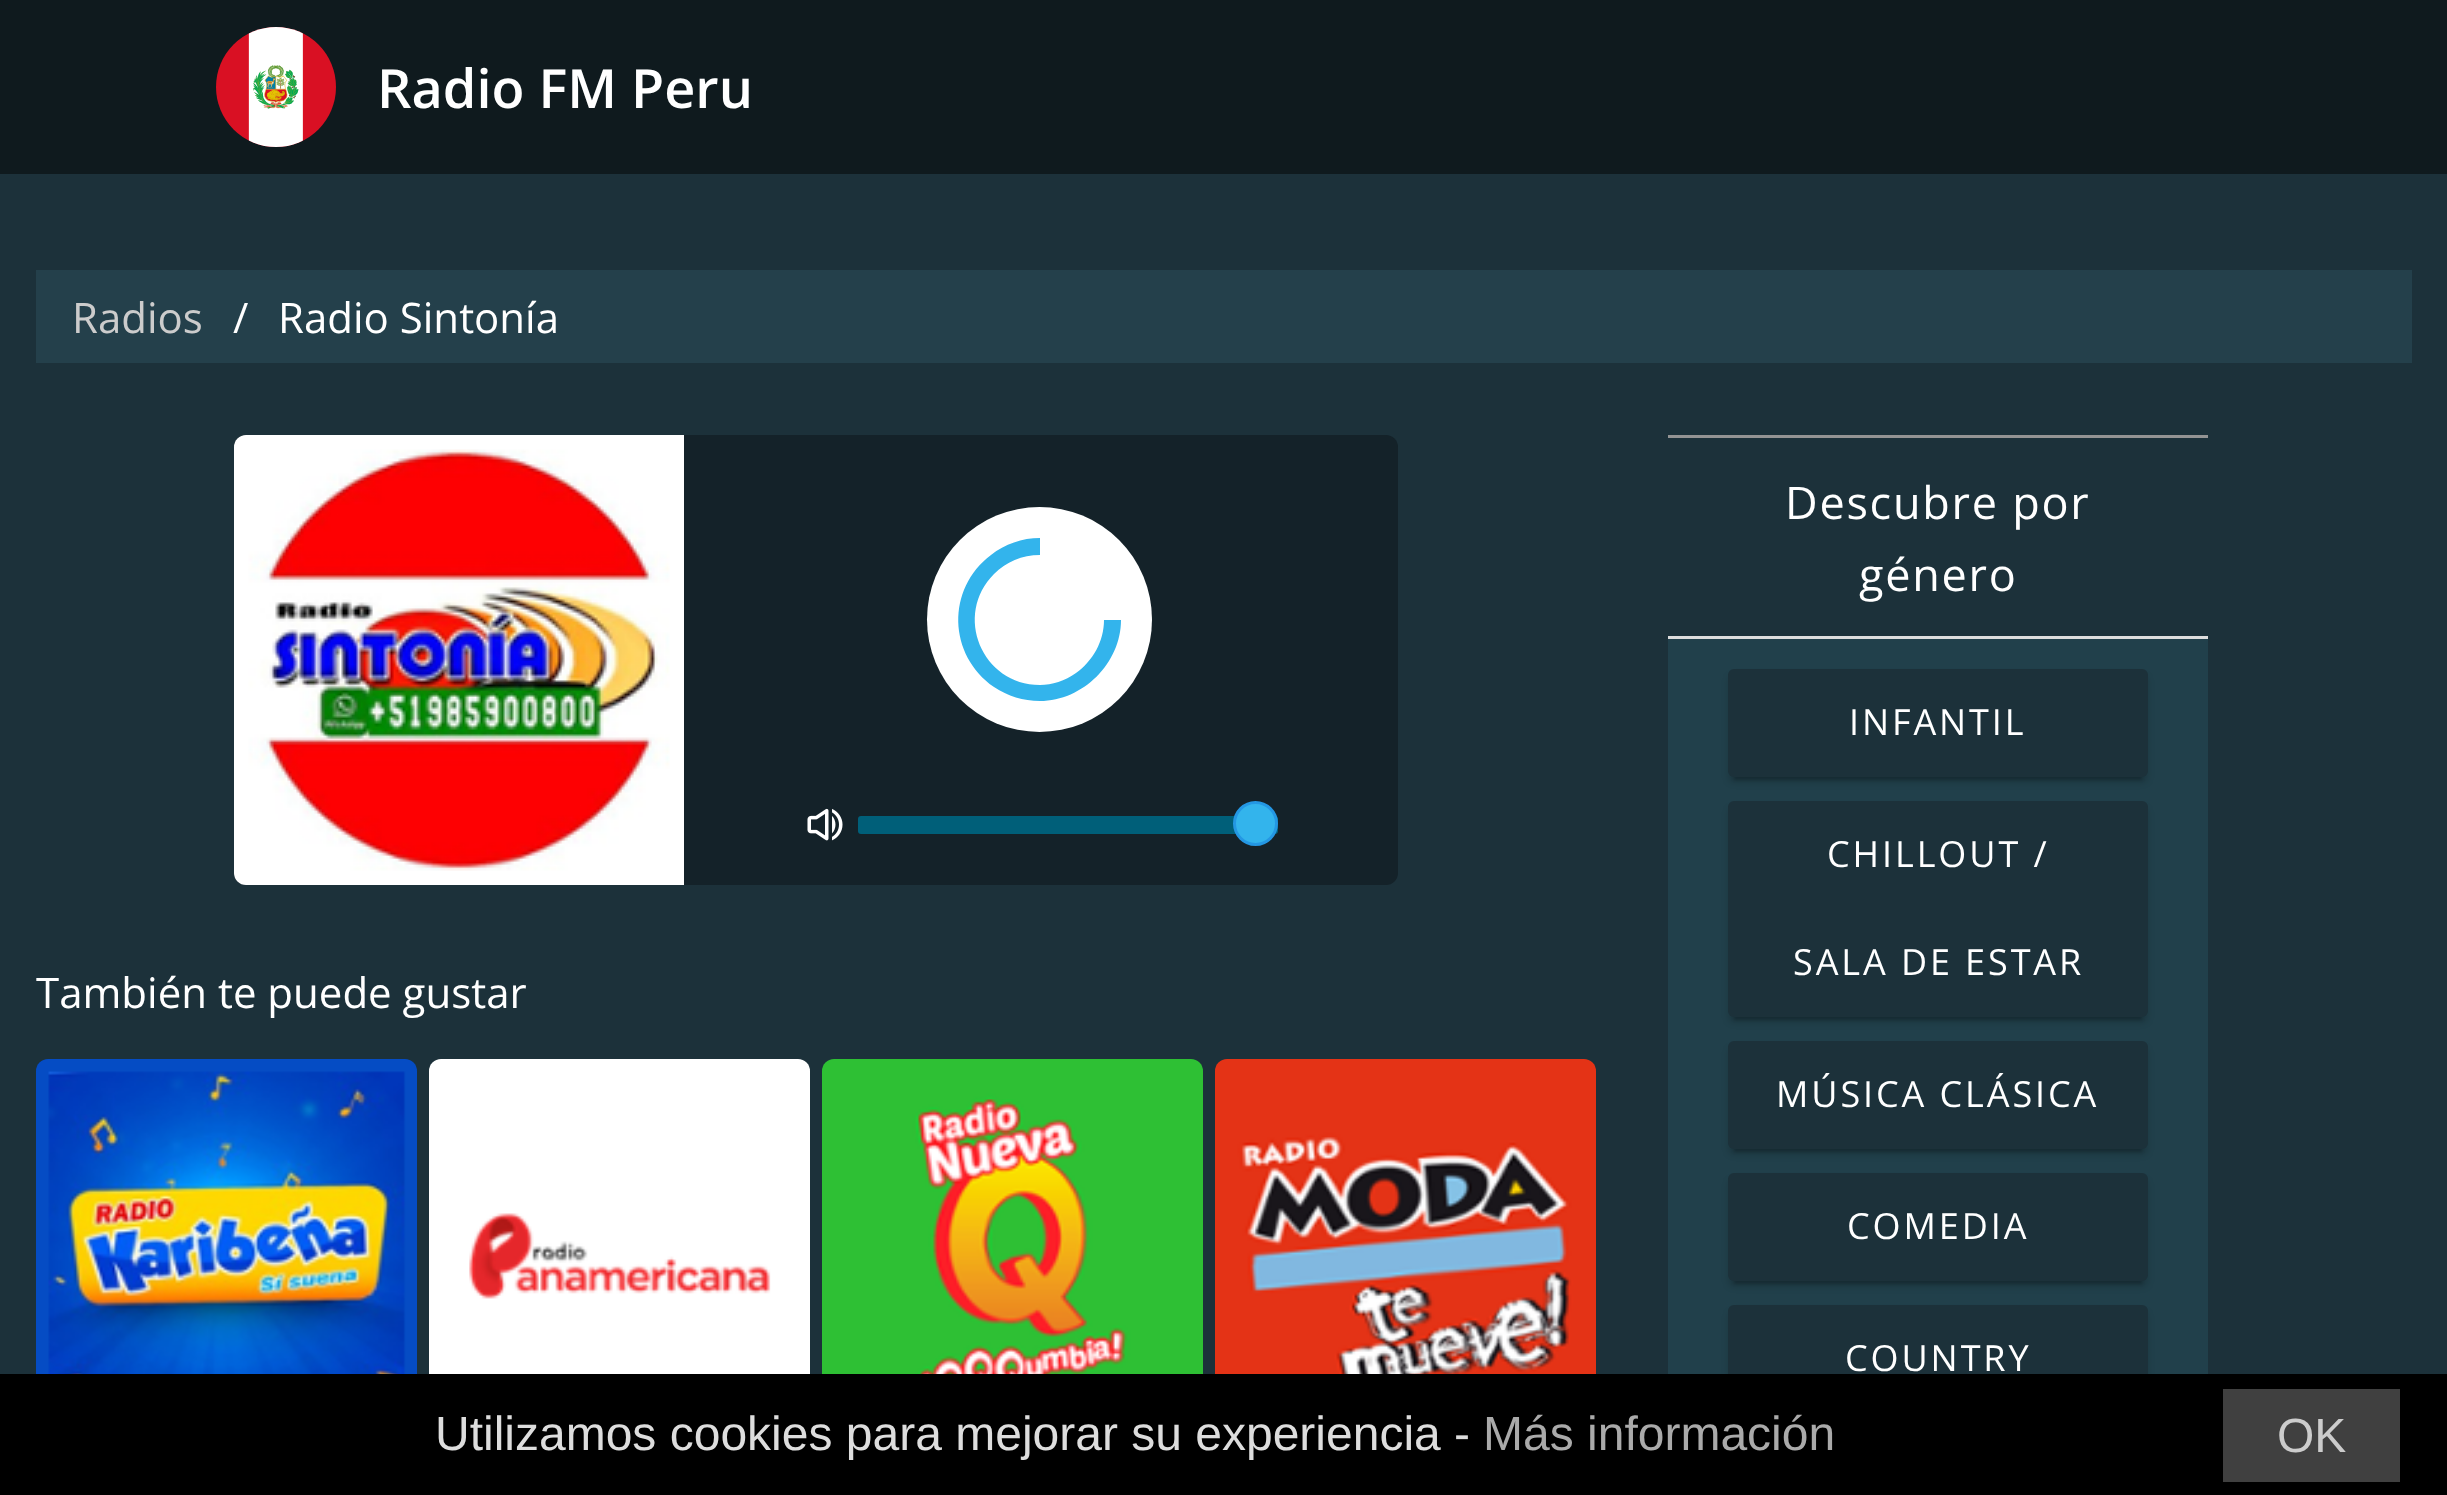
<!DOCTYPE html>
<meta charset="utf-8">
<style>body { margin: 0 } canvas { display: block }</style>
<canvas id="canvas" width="2447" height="1495"></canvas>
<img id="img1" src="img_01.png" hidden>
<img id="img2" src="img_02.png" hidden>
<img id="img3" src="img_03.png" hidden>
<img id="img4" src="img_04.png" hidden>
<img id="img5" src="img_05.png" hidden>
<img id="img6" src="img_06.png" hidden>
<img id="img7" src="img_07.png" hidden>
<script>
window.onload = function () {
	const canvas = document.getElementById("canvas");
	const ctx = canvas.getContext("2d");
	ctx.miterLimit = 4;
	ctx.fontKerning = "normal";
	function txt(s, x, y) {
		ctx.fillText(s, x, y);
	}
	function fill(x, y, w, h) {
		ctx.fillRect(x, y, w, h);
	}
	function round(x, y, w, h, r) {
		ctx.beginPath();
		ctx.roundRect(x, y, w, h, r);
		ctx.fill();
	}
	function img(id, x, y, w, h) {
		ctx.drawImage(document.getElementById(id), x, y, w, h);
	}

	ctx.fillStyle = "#1C313A";
	fill(0, 0, 2447, 1495);
	ctx.fillStyle = "#0F1A1E";
	fill(0, 0, 2447, 174);
	img("img1", 216, 27, 120, 120);
	ctx.fillStyle = "#24404B";
	fill(36, 270, 2376, 93);
	ctx.fillStyle = "#142229";
	round(234, 435, 1164, 450, 12);
	img("img2", 234, 435, 450, 450);
	ctx.fillStyle = "#FFFFFF";
	ctx.beginPath();
	ctx.arc(1039.5, 619.5, 112.5, 0, Math.PI * 2);
	ctx.fill();
	ctx.fillStyle = "#33B4EC";
	ctx.beginPath();
	ctx.moveTo(1040, 701);
	ctx.bezierCurveTo(1083, 701, 1121, 663, 1121, 620);
	ctx.lineTo(1104, 620);
	ctx.bezierCurveTo(1104, 641, 1093, 661, 1076, 673);
	ctx.bezierCurveTo(1065, 681, 1052, 685, 1040, 685);
	ctx.bezierCurveTo(982, 685, 953, 615, 994, 574);
	ctx.bezierCurveTo(1006, 562, 1022, 555, 1040, 555);
	ctx.lineTo(1040, 538);
	ctx.bezierCurveTo(1022, 538, 1005, 544, 991, 555);
	ctx.bezierCurveTo(946, 589, 948, 655, 994, 687);
	ctx.bezierCurveTo(1008, 696, 1023, 701, 1040, 701);
	ctx.closePath();
	ctx.fill();
	img("img3", 807, 808, 36, 33);
	ctx.fillStyle = "#005F79";
	round(858, 816, 420, 18, 3);
	ctx.fillStyle = "#33B4EC";
	ctx.beginPath();
	ctx.arc(1255.5, 823.5, 21, 0, Math.PI * 2);
	ctx.fill();
	ctx.strokeStyle = "#2497E3";
	ctx.lineWidth = 3;
	ctx.stroke();
	img("img4", 36, 1059, 381, 315);
	img("img5", 429, 1059, 381, 315);
	img("img6", 822, 1059, 381, 315);
	img("img7", 1215, 1059, 381, 315);
	ctx.fillStyle = "#939393";
	fill(1668, 435, 540, 3);
	ctx.fillStyle = "#DDDDDD";
	fill(1668, 636, 540, 3);
	ctx.fillStyle = "#21404B";
	fill(1668, 639, 540, 735);
	ctx.fillStyle = "rgba(0, 0, 0, 0.14)";
	ctx.filter = "blur(3px)";
	ctx.beginPath();
	ctx.roundRect(1728, 675, 420, 108, 6);
	ctx.fill();
	ctx.filter = "none";
	ctx.fillStyle = "rgba(0, 0, 0, 0.2)";
	ctx.filter = "blur(1.5px)";
	ctx.beginPath();
	ctx.rect(1734, 684, 408, 96);
	ctx.fill();
	ctx.filter = "none";
	ctx.fillStyle = "#1C313A";
	round(1728, 669, 420, 108, 6);
	ctx.fillStyle = "rgba(0, 0, 0, 0.14)";
	ctx.filter = "blur(3px)";
	ctx.beginPath();
	ctx.roundRect(1728, 807, 420, 216, 6);
	ctx.fill();
	ctx.filter = "none";
	ctx.fillStyle = "rgba(0, 0, 0, 0.2)";
	ctx.filter = "blur(1.5px)";
	ctx.beginPath();
	ctx.rect(1734, 816, 408, 204);
	ctx.fill();
	ctx.filter = "none";
	ctx.fillStyle = "#1C313A";
	round(1728, 801, 420, 216, 6);
	ctx.fillStyle = "rgba(0, 0, 0, 0.14)";
	ctx.filter = "blur(3px)";
	ctx.beginPath();
	ctx.roundRect(1728, 1047, 420, 108, 6);
	ctx.fill();
	ctx.filter = "none";
	ctx.fillStyle = "rgba(0, 0, 0, 0.2)";
	ctx.filter = "blur(1.5px)";
	ctx.beginPath();
	ctx.rect(1734, 1056, 408, 96);
	ctx.fill();
	ctx.filter = "none";
	ctx.fillStyle = "#1C313A";
	round(1728, 1041, 420, 108, 6);
	ctx.fillStyle = "rgba(0, 0, 0, 0.14)";
	ctx.filter = "blur(3px)";
	ctx.beginPath();
	ctx.roundRect(1728, 1179, 420, 108, 6);
	ctx.fill();
	ctx.filter = "none";
	ctx.fillStyle = "rgba(0, 0, 0, 0.2)";
	ctx.filter = "blur(1.5px)";
	ctx.beginPath();
	ctx.rect(1734, 1188, 408, 96);
	ctx.fill();
	ctx.filter = "none";
	ctx.fillStyle = "#1C313A";
	round(1728, 1173, 420, 108, 6);
	ctx.fillStyle = "rgba(0, 0, 0, 0.14)";
	ctx.filter = "blur(3px)";
	ctx.beginPath();
	ctx.roundRect(1728, 1311, 420, 108, 6);
	ctx.fill();
	ctx.filter = "none";
	ctx.fillStyle = "#1C313A";
	round(1728, 1305, 420, 108, 6);
	ctx.fillStyle = "#000000";
	fill(0, 1374, 2447, 121);
	ctx.fillStyle = "#404040";
	fill(2223, 1389, 177, 93);
	ctx.font = "600 54px Open Sans";
	ctx.fillStyle = "#FFFFFF";
	txt("Radio FM Peru", 377, 108);
	ctx.font = "42px Open Sans";
	ctx.fillStyle = "#CCCCCC";
	txt("Radios", 72, 333);
	ctx.fillStyle = "#FFFFFF";
	txt("/", 233, 333);
	txt("Radio Sintonía", 278, 333);
	txt("También te puede gustar", 36, 1008);
	ctx.letterSpacing = "1.75px";
	ctx.font = "45px Open Sans";
	txt("Descubre por", 1785, 519);
	txt("género", 1859, 591);
	ctx.letterSpacing = "2.9px";
	ctx.font = "36px Open Sans";
	txt("INFANTIL", 1849, 735);
	txt("CHILLOUT /", 1827, 867);
	txt("SALA DE ESTAR", 1793, 975);
	txt("MÚSICA CLÁSICA", 1776, 1107);
	txt("COMEDIA", 1847, 1239);
	txt("COUNTRY", 1845, 1371);
	ctx.letterSpacing = "0px";
	ctx.font = "48px Liberation Sans";
	ctx.fillStyle = "#DDDDDD";
	txt("Utilizamos cookies para mejorar su experiencia -", 435, 1450);
	ctx.fillStyle = "#AAAAAA";
	txt("Más información", 1483, 1450);
	ctx.fillStyle = "#CCCCCC";
	txt("OK", 2277, 1452);
};
</script>
